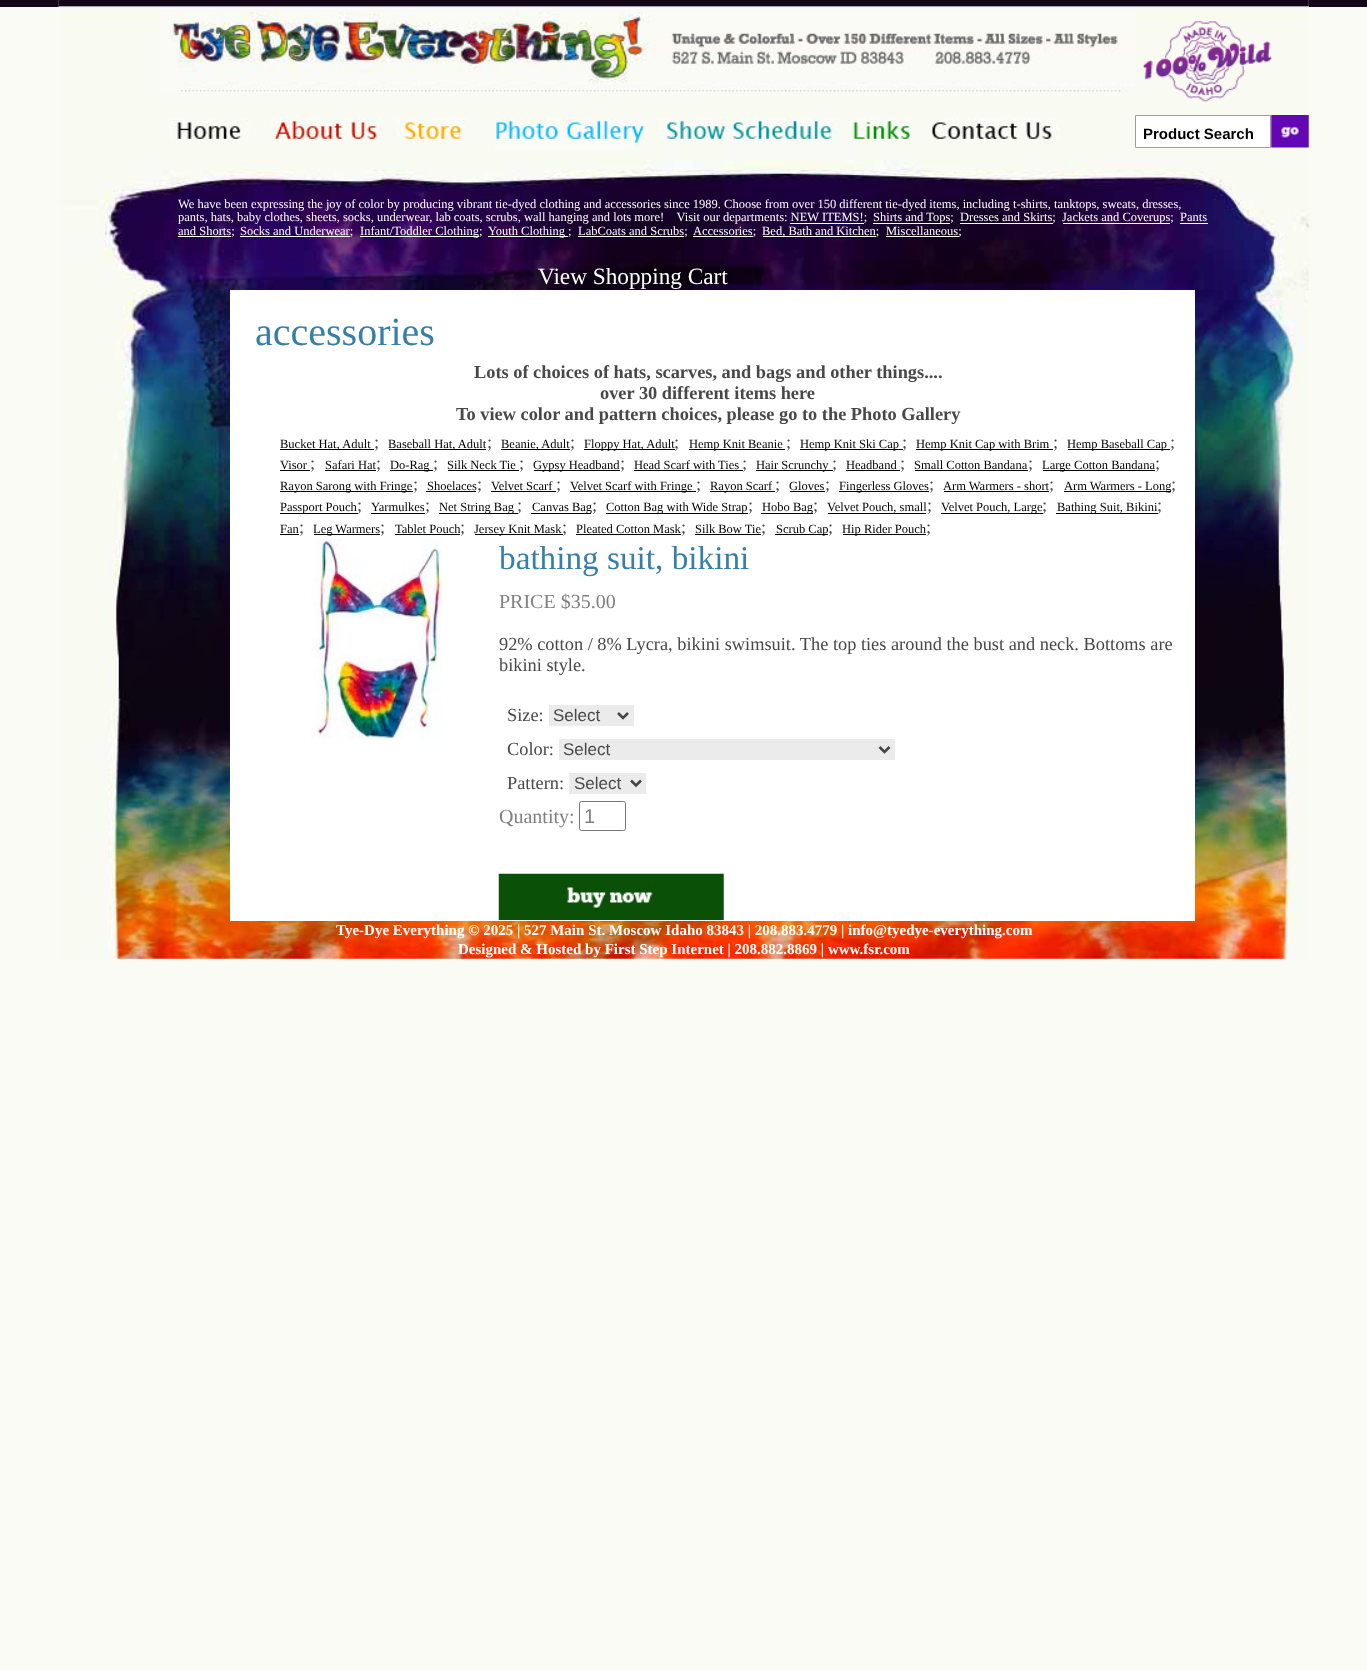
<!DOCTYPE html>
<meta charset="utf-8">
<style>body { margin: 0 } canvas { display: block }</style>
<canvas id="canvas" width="1367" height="1670"></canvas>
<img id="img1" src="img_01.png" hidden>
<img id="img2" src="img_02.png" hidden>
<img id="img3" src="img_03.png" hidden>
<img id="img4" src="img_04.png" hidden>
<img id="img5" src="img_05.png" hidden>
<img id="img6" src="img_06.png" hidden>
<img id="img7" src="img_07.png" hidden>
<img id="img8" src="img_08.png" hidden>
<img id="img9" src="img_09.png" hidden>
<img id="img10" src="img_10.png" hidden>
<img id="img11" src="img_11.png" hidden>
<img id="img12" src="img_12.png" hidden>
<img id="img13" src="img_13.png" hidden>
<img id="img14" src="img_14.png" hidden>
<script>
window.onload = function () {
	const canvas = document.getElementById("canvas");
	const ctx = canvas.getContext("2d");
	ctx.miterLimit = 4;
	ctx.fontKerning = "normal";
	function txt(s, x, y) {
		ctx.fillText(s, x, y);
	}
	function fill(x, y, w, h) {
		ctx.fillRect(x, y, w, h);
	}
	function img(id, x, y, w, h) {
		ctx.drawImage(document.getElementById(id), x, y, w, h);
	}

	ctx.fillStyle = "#F9FBF4";
	fill(0, 0, 1367, 1670);
	ctx.fillStyle = "#140719";
	fill(0, 0, 1367, 7);
	img("img1", 58, 0, 1251, 959);
	img("img2", 58, 0, 1251, 689);
	img("img3", 159, 12, 976, 81);
	img("img4", 1143, 21, 129, 81);
	img("img5", 169, 119, 80, 20);
	img("img6", 271, 118, 111, 21);
	img("img7", 396, 118, 71, 21);
	img("img8", 495, 118, 151, 31);
	img("img9", 658, 118, 180, 21);
	img("img10", 850, 118, 61, 21);
	img("img11", 930, 118, 130, 21);
	ctx.fillStyle = "#FFFFFF";
	ctx.beginPath();
	ctx.rect(1135.5, 115.5, 135, 32);
	ctx.fill();
	ctx.strokeStyle = "#9D9D9D";
	ctx.stroke();
	img("img12", 1271, 115, 38, 33);
	fill(873, 223, 77, 1);
	fill(960, 223, 93, 1);
	fill(1063, 223, 107, 1);
	fill(1180, 223, 28, 1);
	fill(790, 223, 74, 1);
	fill(178, 236, 53, 1);
	fill(240, 236, 110, 1);
	fill(360, 236, 119, 1);
	fill(488, 236, 80, 1);
	fill(578, 236, 106, 1);
	fill(693, 236, 60, 1);
	fill(763, 236, 113, 1);
	fill(886, 236, 73, 1);
	fill(230, 290, 965, 631);
	ctx.fillStyle = "#000000";
	fill(280, 449, 94, 1);
	fill(389, 449, 97, 1);
	fill(501, 449, 69, 1);
	fill(584, 449, 91, 1);
	fill(689, 449, 96, 1);
	fill(800, 449, 103, 1);
	fill(916, 449, 137, 1);
	fill(1068, 449, 102, 1);
	fill(280, 470, 30, 1);
	fill(325, 470, 51, 1);
	fill(390, 470, 43, 1);
	fill(448, 470, 71, 1);
	fill(534, 470, 86, 1);
	fill(634, 470, 109, 1);
	fill(756, 470, 77, 1);
	fill(846, 470, 54, 1);
	fill(915, 470, 113, 1);
	fill(1043, 470, 112, 1);
	fill(280, 491, 133, 1);
	fill(426, 491, 50, 1);
	fill(491, 491, 65, 1);
	fill(570, 491, 126, 1);
	fill(710, 491, 65, 1);
	fill(790, 491, 35, 1);
	fill(839, 491, 90, 1);
	fill(944, 491, 105, 1);
	fill(1064, 491, 107, 1);
	fill(280, 513, 78, 1);
	fill(371, 513, 54, 1);
	fill(439, 513, 79, 1);
	fill(531, 513, 60, 1);
	fill(606, 513, 142, 1);
	fill(761, 513, 52, 1);
	fill(828, 513, 98, 1);
	fill(941, 513, 102, 1);
	fill(1056, 513, 102, 1);
	fill(280, 534, 19, 1);
	fill(314, 534, 66, 1);
	fill(395, 534, 65, 1);
	fill(475, 534, 88, 1);
	fill(576, 534, 105, 1);
	fill(695, 534, 66, 1);
	fill(775, 534, 53, 1);
	fill(843, 534, 83, 1);
	img("img13", 311, 539, 132, 201);
	ctx.fillStyle = "#EBEBEB";
	fill(549, 705, 85, 21);
	ctx.beginPath();
	ctx.moveTo(618, 713);
	ctx.lineTo(623, 718);
	ctx.lineTo(628, 713);
	ctx.strokeStyle = "#444444";
	ctx.lineWidth = 2.5;
	ctx.stroke();
	fill(559, 739, 336, 21);
	ctx.beginPath();
	ctx.moveTo(879.5, 747);
	ctx.lineTo(884.5, 752);
	ctx.lineTo(889.5, 747);
	ctx.stroke();
	fill(569, 773, 77, 21);
	ctx.beginPath();
	ctx.moveTo(631, 780.5);
	ctx.lineTo(636, 785.5);
	ctx.lineTo(641, 780.5);
	ctx.stroke();
	ctx.beginPath();
	ctx.roundRect(579.5, 801.5, 46, 29, 2);
	ctx.strokeStyle = "#767676";
	ctx.lineWidth = 1;
	ctx.stroke();
	img("img14", 498, 873, 226, 47);
	ctx.font = "bold 15px Liberation Sans";
	ctx.fillStyle = "#000000";
	txt("Product Search", 1143, 139);
	ctx.font = "12.5px Liberation Serif";
	ctx.fillStyle = "#FFFFFF";
	txt("We have been expressing the joy of color by producing vibrant tie-dyed clothing and accessories since 1989. Choose from over 150 different tie-dyed items, including t-shirts, tanktops, sweats, dresses,", 178, 208);
	txt("pants, hats, baby clothes, sheets, socks, underwear, lab coats, scrubs, wall hanging and lots more!    Visit our departments: NEW ITEMS!;", 178, 221);
	txt("Shirts and Tops;", 873, 221);
	txt("Dresses and Skirts;", 960, 221);
	txt("Jackets and Coverups;", 1062, 221);
	txt("Pants", 1180, 221);
	txt("and Shorts;", 178, 235);
	txt("Socks and Underwear;", 240, 235);
	txt("Infant/Toddler Clothing;", 360, 235);
	txt("Youth Clothing ;", 488, 235);
	txt("LabCoats and Scrubs;", 578, 235);
	txt("Accessories;", 693, 235);
	txt("Bed, Bath and Kitchen;", 762, 235);
	txt("Miscellaneous;", 886, 235);
	ctx.font = "23.25px Liberation Serif";
	txt("View Shopping Cart", 538, 284);
	ctx.font = "40px Liberation Serif";
	ctx.fillStyle = "#387FA8";
	txt("accessories", 255, 345);
	ctx.font = "bold 18.35px Liberation Serif";
	ctx.fillStyle = "#484848";
	txt("Lots of choices of hats, scarves, and bags and other things....", 474, 378);
	txt("over 30 different items here", 600, 399);
	txt("To view color and pattern choices, please go to the Photo Gallery", 456, 420);
	ctx.font = "12.5px Liberation Serif";
	ctx.fillStyle = "#000000";
	txt("Bucket Hat, Adult", 280, 448);
	ctx.font = "18.35px Liberation Serif";
	ctx.fillStyle = "#484848";
	txt(";", 374, 448);
	ctx.font = "12.5px Liberation Serif";
	ctx.fillStyle = "#000000";
	txt("Baseball Hat, Adult", 388, 448);
	ctx.font = "18.35px Liberation Serif";
	ctx.fillStyle = "#484848";
	txt(";", 487, 448);
	ctx.font = "12.5px Liberation Serif";
	ctx.fillStyle = "#000000";
	txt("Beanie, Adult", 501, 448);
	ctx.font = "18.35px Liberation Serif";
	ctx.fillStyle = "#484848";
	txt(";", 570, 448);
	ctx.font = "12.5px Liberation Serif";
	ctx.fillStyle = "#000000";
	txt("Floppy Hat, Adult", 584, 448);
	ctx.font = "18.35px Liberation Serif";
	ctx.fillStyle = "#484848";
	txt(";", 674, 448);
	ctx.font = "12.5px Liberation Serif";
	ctx.fillStyle = "#000000";
	txt("Hemp Knit Beanie", 689, 448);
	ctx.font = "18.35px Liberation Serif";
	ctx.fillStyle = "#484848";
	txt(";", 786, 448);
	ctx.font = "12.5px Liberation Serif";
	ctx.fillStyle = "#000000";
	txt("Hemp Knit Ski Cap", 800, 448);
	ctx.font = "18.35px Liberation Serif";
	ctx.fillStyle = "#484848";
	txt(";", 902, 448);
	ctx.font = "12.5px Liberation Serif";
	ctx.fillStyle = "#000000";
	txt("Hemp Knit Cap with Brim", 916, 448);
	ctx.font = "18.35px Liberation Serif";
	ctx.fillStyle = "#484848";
	txt(";", 1053, 448);
	ctx.font = "12.5px Liberation Serif";
	ctx.fillStyle = "#000000";
	txt("Hemp Baseball Cap", 1067, 448);
	ctx.font = "18.35px Liberation Serif";
	ctx.fillStyle = "#484848";
	txt(";", 1170, 448);
	ctx.font = "12.5px Liberation Serif";
	ctx.fillStyle = "#000000";
	txt("Visor", 280, 469);
	ctx.font = "18.35px Liberation Serif";
	ctx.fillStyle = "#484848";
	txt(";", 310, 469);
	ctx.font = "12.5px Liberation Serif";
	ctx.fillStyle = "#000000";
	txt("Safari Hat", 325, 469);
	ctx.font = "18.35px Liberation Serif";
	ctx.fillStyle = "#484848";
	txt(";", 376, 469);
	ctx.font = "12.5px Liberation Serif";
	ctx.fillStyle = "#000000";
	txt("Do-Rag", 390, 469);
	ctx.font = "18.35px Liberation Serif";
	ctx.fillStyle = "#484848";
	txt(";", 433, 469);
	ctx.font = "12.5px Liberation Serif";
	ctx.fillStyle = "#000000";
	txt("Silk Neck Tie", 447, 469);
	ctx.font = "18.35px Liberation Serif";
	ctx.fillStyle = "#484848";
	txt(";", 519, 469);
	ctx.font = "12.5px Liberation Serif";
	ctx.fillStyle = "#000000";
	txt("Gypsy Headband", 533, 469);
	ctx.font = "18.35px Liberation Serif";
	ctx.fillStyle = "#484848";
	txt(";", 620, 469);
	ctx.font = "12.5px Liberation Serif";
	ctx.fillStyle = "#000000";
	txt("Head Scarf with Ties", 634, 469);
	ctx.font = "18.35px Liberation Serif";
	ctx.fillStyle = "#484848";
	txt(";", 742, 469);
	ctx.font = "12.5px Liberation Serif";
	ctx.fillStyle = "#000000";
	txt("Hair Scrunchy", 756, 469);
	ctx.font = "18.35px Liberation Serif";
	ctx.fillStyle = "#484848";
	txt(";", 832, 469);
	ctx.font = "12.5px Liberation Serif";
	ctx.fillStyle = "#000000";
	txt("Headband", 846, 469);
	ctx.font = "18.35px Liberation Serif";
	ctx.fillStyle = "#484848";
	txt(";", 900, 469);
	ctx.font = "12.5px Liberation Serif";
	ctx.fillStyle = "#000000";
	txt("Small Cotton Bandana", 914, 469);
	ctx.font = "18.35px Liberation Serif";
	ctx.fillStyle = "#484848";
	txt(";", 1028, 469);
	ctx.font = "12.5px Liberation Serif";
	ctx.fillStyle = "#000000";
	txt("Large Cotton Bandana", 1042, 469);
	ctx.font = "18.35px Liberation Serif";
	ctx.fillStyle = "#484848";
	txt(";", 1155, 469);
	ctx.font = "12.5px Liberation Serif";
	ctx.fillStyle = "#000000";
	txt("Rayon Sarong with Fringe", 280, 490);
	ctx.font = "18.35px Liberation Serif";
	ctx.fillStyle = "#484848";
	txt(";", 413, 490);
	ctx.font = "12.5px Liberation Serif";
	ctx.fillStyle = "#000000";
	txt("Shoelaces", 427, 490);
	ctx.font = "18.35px Liberation Serif";
	ctx.fillStyle = "#484848";
	txt(";", 477, 490);
	ctx.font = "12.5px Liberation Serif";
	ctx.fillStyle = "#000000";
	txt("Velvet Scarf", 491, 490);
	ctx.font = "18.35px Liberation Serif";
	ctx.fillStyle = "#484848";
	txt(";", 556, 490);
	ctx.font = "12.5px Liberation Serif";
	ctx.fillStyle = "#000000";
	txt("Velvet Scarf with Fringe", 570, 490);
	ctx.font = "18.35px Liberation Serif";
	ctx.fillStyle = "#484848";
	txt(";", 696, 490);
	ctx.font = "12.5px Liberation Serif";
	ctx.fillStyle = "#000000";
	txt("Rayon Scarf", 710, 490);
	ctx.font = "18.35px Liberation Serif";
	ctx.fillStyle = "#484848";
	txt(";", 775, 490);
	ctx.font = "12.5px Liberation Serif";
	ctx.fillStyle = "#000000";
	txt("Gloves", 789, 490);
	ctx.font = "18.35px Liberation Serif";
	ctx.fillStyle = "#484848";
	txt(";", 825, 490);
	ctx.font = "12.5px Liberation Serif";
	ctx.fillStyle = "#000000";
	txt("Fingerless Gloves", 839, 490);
	ctx.font = "18.35px Liberation Serif";
	ctx.fillStyle = "#484848";
	txt(";", 929, 490);
	ctx.font = "12.5px Liberation Serif";
	ctx.fillStyle = "#000000";
	txt("Arm Warmers - short", 943, 490);
	ctx.font = "18.35px Liberation Serif";
	ctx.fillStyle = "#484848";
	txt(";", 1049, 490);
	ctx.font = "12.5px Liberation Serif";
	ctx.fillStyle = "#000000";
	txt("Arm Warmers - Long", 1064, 490);
	ctx.font = "18.35px Liberation Serif";
	ctx.fillStyle = "#484848";
	txt(";", 1171, 490);
	ctx.font = "12.5px Liberation Serif";
	ctx.fillStyle = "#000000";
	txt("Passport Pouch", 280, 511);
	ctx.font = "18.35px Liberation Serif";
	ctx.fillStyle = "#484848";
	txt(";", 357, 511);
	ctx.font = "12.5px Liberation Serif";
	ctx.fillStyle = "#000000";
	txt("Yarmulkes", 371, 511);
	ctx.font = "18.35px Liberation Serif";
	ctx.fillStyle = "#484848";
	txt(";", 425, 511);
	ctx.font = "12.5px Liberation Serif";
	ctx.fillStyle = "#000000";
	txt("Net String Bag", 439, 511);
	ctx.font = "18.35px Liberation Serif";
	ctx.fillStyle = "#484848";
	txt(";", 517, 511);
	ctx.font = "12.5px Liberation Serif";
	ctx.fillStyle = "#000000";
	txt("Canvas Bag", 532, 511);
	ctx.font = "18.35px Liberation Serif";
	ctx.fillStyle = "#484848";
	txt(";", 592, 511);
	ctx.font = "12.5px Liberation Serif";
	ctx.fillStyle = "#000000";
	txt("Cotton Bag with Wide Strap", 606, 511);
	ctx.font = "18.35px Liberation Serif";
	ctx.fillStyle = "#484848";
	txt(";", 748, 511);
	ctx.font = "12.5px Liberation Serif";
	ctx.fillStyle = "#000000";
	txt("Hobo Bag", 762, 511);
	ctx.font = "18.35px Liberation Serif";
	ctx.fillStyle = "#484848";
	txt(";", 813, 511);
	ctx.font = "12.5px Liberation Serif";
	ctx.fillStyle = "#000000";
	txt("Velvet Pouch, small", 827, 511);
	ctx.font = "18.35px Liberation Serif";
	ctx.fillStyle = "#484848";
	txt(";", 927, 511);
	ctx.font = "12.5px Liberation Serif";
	ctx.fillStyle = "#000000";
	txt("Velvet Pouch, Large", 941, 511);
	ctx.font = "18.35px Liberation Serif";
	ctx.fillStyle = "#484848";
	txt(";", 1042, 511);
	ctx.font = "12.5px Liberation Serif";
	ctx.fillStyle = "#000000";
	txt("Bathing Suit, Bikini", 1057, 511);
	ctx.font = "18.35px Liberation Serif";
	ctx.fillStyle = "#484848";
	txt(";", 1157, 511);
	ctx.font = "12.5px Liberation Serif";
	ctx.fillStyle = "#000000";
	txt("Fan", 280, 533);
	ctx.font = "18.35px Liberation Serif";
	ctx.fillStyle = "#484848";
	txt(";", 299, 533);
	ctx.font = "12.5px Liberation Serif";
	ctx.fillStyle = "#000000";
	txt("Leg Warmers", 313, 533);
	ctx.font = "18.35px Liberation Serif";
	ctx.fillStyle = "#484848";
	txt(";", 380, 533);
	ctx.font = "12.5px Liberation Serif";
	ctx.fillStyle = "#000000";
	txt("Tablet Pouch", 395, 533);
	ctx.font = "18.35px Liberation Serif";
	ctx.fillStyle = "#484848";
	txt(";", 460, 533);
	ctx.font = "12.5px Liberation Serif";
	ctx.fillStyle = "#000000";
	txt("Jersey Knit Mask", 474, 533);
	ctx.font = "18.35px Liberation Serif";
	ctx.fillStyle = "#484848";
	txt(";", 562, 533);
	ctx.font = "12.5px Liberation Serif";
	ctx.fillStyle = "#000000";
	txt("Pleated Cotton Mask", 576, 533);
	ctx.font = "18.35px Liberation Serif";
	ctx.fillStyle = "#484848";
	txt(";", 681, 533);
	ctx.font = "12.5px Liberation Serif";
	ctx.fillStyle = "#000000";
	txt("Silk Bow Tie", 695, 533);
	ctx.font = "18.35px Liberation Serif";
	ctx.fillStyle = "#484848";
	txt(";", 761, 533);
	ctx.font = "12.5px Liberation Serif";
	ctx.fillStyle = "#000000";
	txt("Scrub Cap", 776, 533);
	ctx.font = "18.35px Liberation Serif";
	ctx.fillStyle = "#484848";
	txt(";", 828, 533);
	ctx.font = "12.5px Liberation Serif";
	ctx.fillStyle = "#000000";
	txt("Hip Rider Pouch", 842, 533);
	ctx.font = "18.35px Liberation Serif";
	ctx.fillStyle = "#484848";
	txt(";", 926, 533);
	ctx.font = "33.25px Liberation Serif";
	ctx.fillStyle = "#387FA8";
	txt("bathing suit, bikini", 499, 569);
	ctx.font = "20px Liberation Serif";
	ctx.fillStyle = "#808080";
	txt("PRICE $35.00", 499, 608);
	ctx.font = "18.35px Liberation Serif";
	ctx.fillStyle = "#484848";
	txt("92% cotton / 8% Lycra, bikini swimsuit. The top ties around the bust and neck. Bottoms are", 499, 650);
	txt("bikini style.", 499, 671);
	txt("Size:", 507, 721);
	ctx.font = "17px Liberation Sans";
	txt("Select", 553, 721);
	ctx.font = "18.35px Liberation Serif";
	txt("Color:", 507, 755);
	ctx.font = "17px Liberation Sans";
	txt("Select", 563, 755);
	ctx.font = "18.35px Liberation Serif";
	txt("Pattern:", 507, 789);
	ctx.font = "17px Liberation Sans";
	txt("Select", 574, 789);
	ctx.font = "20px Liberation Serif";
	ctx.fillStyle = "#808080";
	txt("Quantity:", 499, 823);
	ctx.font = "20px Liberation Sans";
	txt("1", 584, 823);
	ctx.font = "bold 15px Liberation Serif";
	ctx.fillStyle = "#FFFFFF";
	txt("Tye-Dye Everything © 2025 | 527 Main St. Moscow Idaho 83843 | 208.883.4779 | info@tyedye-everything.com", 336, 935);
	txt("Designed & Hosted by First Step Internet | 208.882.8869 | www.fsr.com", 458, 954);
};
</script>
